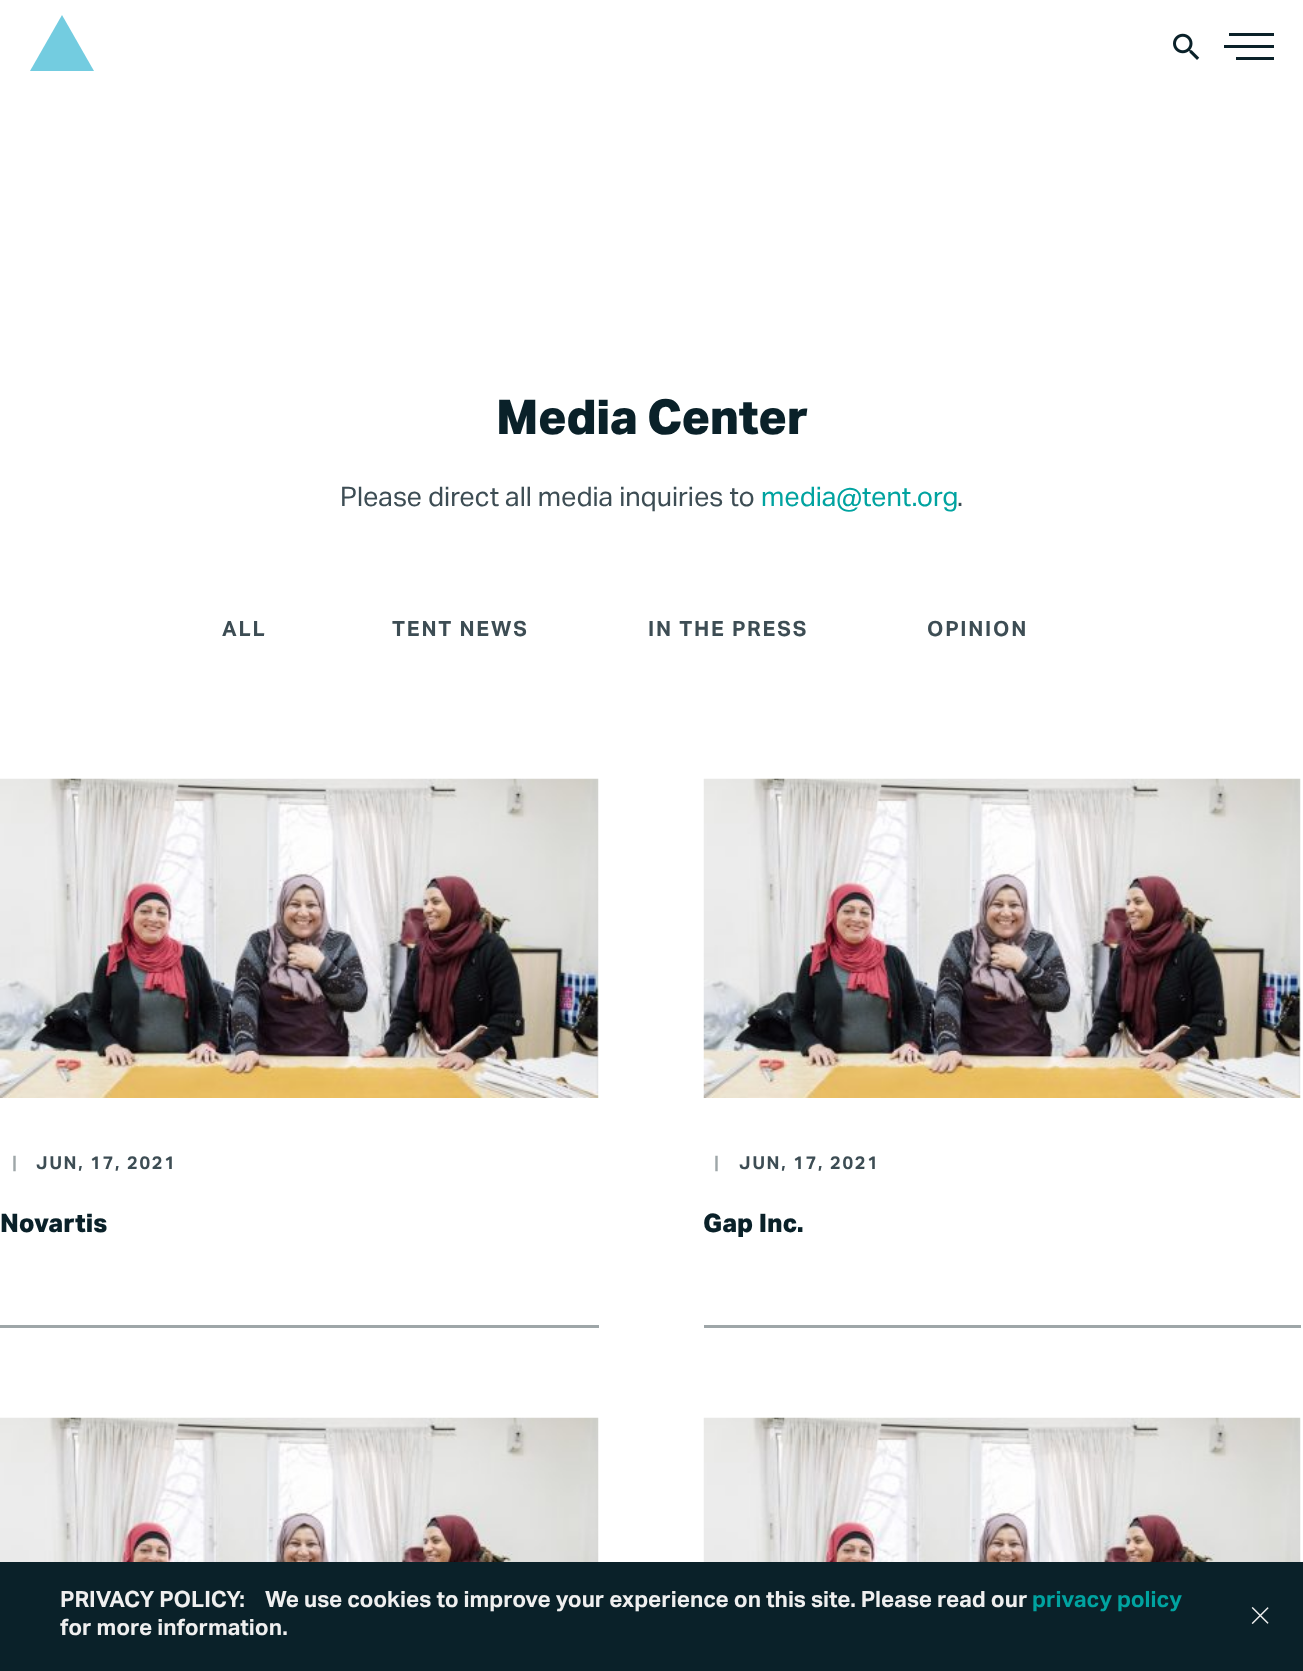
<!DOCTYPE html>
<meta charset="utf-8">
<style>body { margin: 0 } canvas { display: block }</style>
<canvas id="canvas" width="1303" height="1671"></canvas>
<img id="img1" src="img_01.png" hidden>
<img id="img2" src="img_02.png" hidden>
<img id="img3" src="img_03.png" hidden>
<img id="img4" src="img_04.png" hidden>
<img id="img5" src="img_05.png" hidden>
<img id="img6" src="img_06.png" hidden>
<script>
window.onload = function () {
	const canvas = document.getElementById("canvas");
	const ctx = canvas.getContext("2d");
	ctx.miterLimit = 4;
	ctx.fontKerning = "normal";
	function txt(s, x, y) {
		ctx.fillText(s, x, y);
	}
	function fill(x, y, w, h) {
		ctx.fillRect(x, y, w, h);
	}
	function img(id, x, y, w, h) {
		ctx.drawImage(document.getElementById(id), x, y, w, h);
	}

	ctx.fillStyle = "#FFFFFF";
	fill(0, 0, 1303, 1671);
	ctx.fillStyle = "#73CCE0";
	ctx.beginPath();
	ctx.moveTo(30, 71);
	ctx.lineTo(94, 71);
	ctx.lineTo(62, 15);
	ctx.closePath();
	ctx.fill();
	ctx.fillStyle = "#0A2129";
	fill(1224, 45, 50, 3);
	fill(1229, 33, 45, 3);
	fill(1236, 57, 38, 3);
	img("img1", 1173, 33, 27, 27);
	img("img2", 0, 778, 599, 320);
	ctx.fillStyle = "#9EA6A8";
	fill(0, 1325, 599, 3);
	img("img3", 703, 778, 598, 320);
	fill(704, 1325, 597, 3);
	img("img4", 0, 1417, 599, 145);
	img("img5", 703, 1417, 598, 145);
	ctx.fillStyle = "#0A2129";
	fill(0, 1562, 1303, 109);
	img("img6", 1251, 1607, 18, 17);
	ctx.letterSpacing = "-0.5px";
	ctx.font = "bold 48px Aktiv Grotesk";
	txt("Media Center", 496, 434);
	ctx.letterSpacing = "0px";
	ctx.font = "27px Aktiv Grotesk";
	ctx.fillStyle = "#3D4D54";
	txt("Please direct all media inquiries to", 340, 506);
	ctx.fillStyle = "#00A3A0";
	txt("media@tent.org", 761, 506);
	ctx.fillStyle = "#3D4D54";
	txt(".", 957, 506);
	ctx.letterSpacing = "1.75px";
	ctx.font = "bold 21px 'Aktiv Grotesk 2'";
	txt("ALL", 222, 636);
	txt("TENT NEWS", 392, 636);
	txt("IN THE PRESS", 648, 636);
	txt("OPINION", 927, 636);
	ctx.font = "bold 18px 'Aktiv Grotesk 2'";
	ctx.fillStyle = "#9EA6A8";
	txt("|", 12, 1169);
	ctx.fillStyle = "#3D4D54";
	txt("JUN, 17, 2021", 36, 1169);
	ctx.letterSpacing = "0px";
	ctx.font = "bold 25.5px Aktiv Grotesk";
	ctx.fillStyle = "#0A2129";
	txt("Novartis", 0, 1232);
	ctx.letterSpacing = "1.75px";
	ctx.font = "bold 18px 'Aktiv Grotesk 2'";
	ctx.fillStyle = "#9EA6A8";
	txt("|", 714, 1169);
	ctx.fillStyle = "#3D4D54";
	txt("JUN, 17, 2021", 739, 1169);
	ctx.letterSpacing = "0px";
	ctx.font = "bold 25.5px Aktiv Grotesk";
	ctx.fillStyle = "#0A2129";
	txt("Gap Inc.", 703, 1232);
	ctx.font = "bold 22.5px 'Aktiv Grotesk 2'";
	ctx.fillStyle = "#EFEFEF";
	txt("PRIVACY POLICY:", 60, 1607);
	txt("We use cookies to improve your experience on this site. Please read our", 265, 1607);
	ctx.fillStyle = "#00A3A0";
	txt("privacy policy", 1032, 1607);
	ctx.fillStyle = "#EFEFEF";
	txt("for more information.", 60, 1635);
};
</script>
